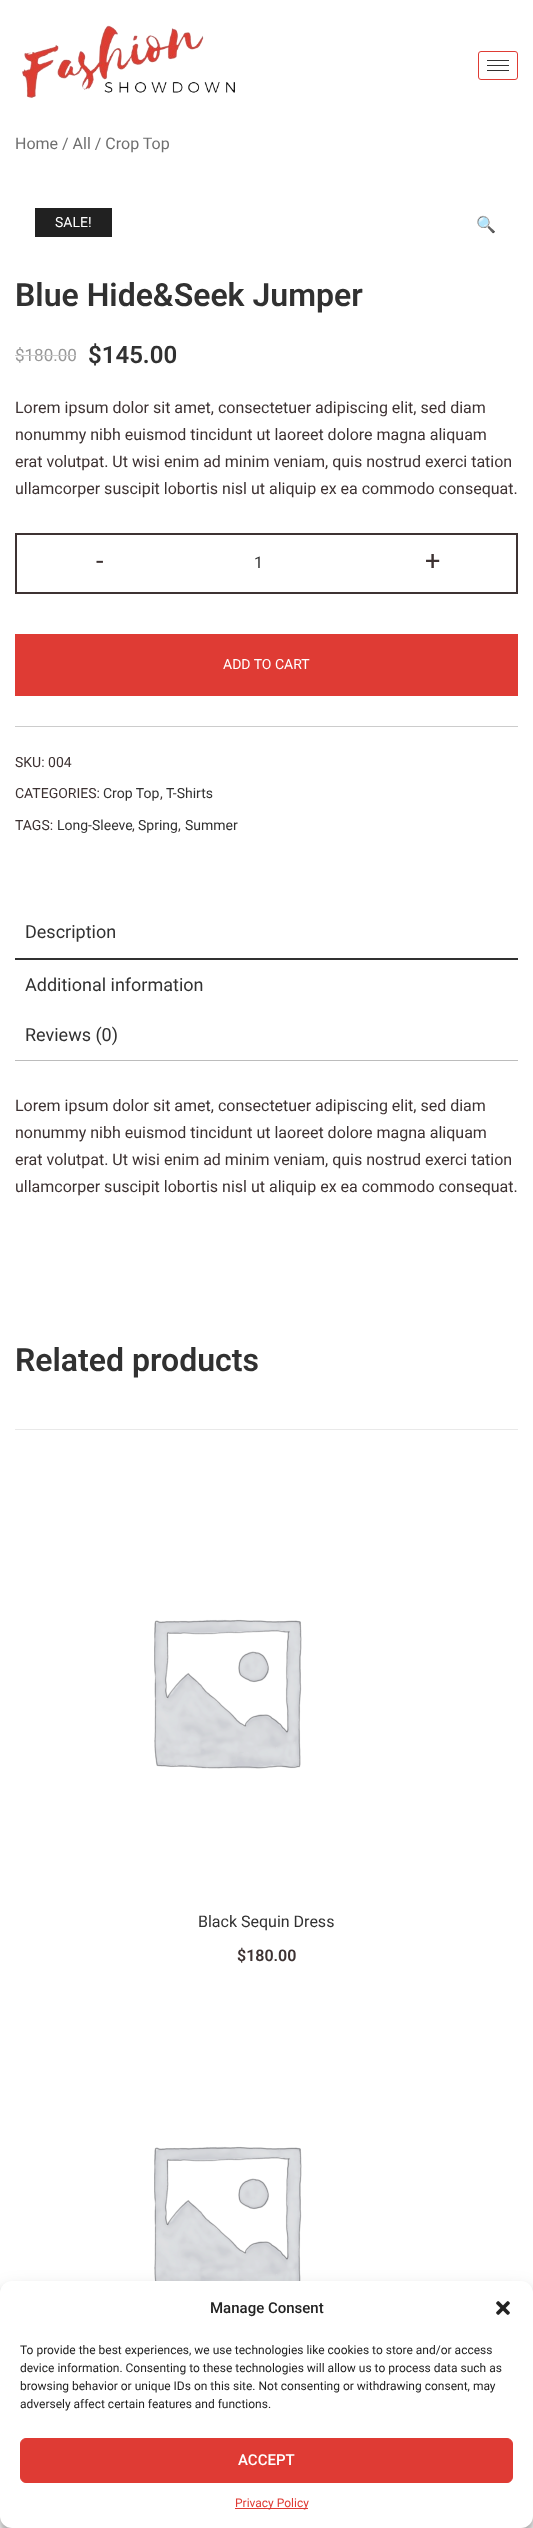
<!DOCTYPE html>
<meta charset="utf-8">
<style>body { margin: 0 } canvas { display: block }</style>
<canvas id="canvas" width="533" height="2528"></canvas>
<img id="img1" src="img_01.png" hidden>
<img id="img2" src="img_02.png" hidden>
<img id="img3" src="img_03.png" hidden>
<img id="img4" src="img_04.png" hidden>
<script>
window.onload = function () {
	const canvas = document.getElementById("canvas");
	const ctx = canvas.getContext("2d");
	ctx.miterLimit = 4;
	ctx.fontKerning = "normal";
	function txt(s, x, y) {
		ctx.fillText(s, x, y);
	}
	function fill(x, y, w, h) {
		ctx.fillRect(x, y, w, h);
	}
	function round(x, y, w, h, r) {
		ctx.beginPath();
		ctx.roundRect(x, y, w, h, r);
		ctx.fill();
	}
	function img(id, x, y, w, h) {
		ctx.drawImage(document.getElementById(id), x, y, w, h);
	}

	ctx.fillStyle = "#FFFFFF";
	fill(0, 0, 533, 2528);
	img("img1", 22, 25, 213, 73);
	ctx.beginPath();
	ctx.roundRect(478.5, 51.5, 39, 28, 2.5);
	ctx.strokeStyle = "#DF3B34";
	ctx.stroke();
	ctx.fillStyle = "#313131";
	fill(487, 60, 22, 1);
	fill(487, 65, 22, 1);
	fill(487, 70, 22, 1);
	ctx.fillStyle = "#212121";
	fill(35, 208, 77, 29);
	ctx.strokeStyle = "#3D3232";
	ctx.lineWidth = 2;
	ctx.strokeRect(16, 534, 501, 59);
	ctx.fillStyle = "#DF3B34";
	fill(15, 634, 503, 62);
	ctx.fillStyle = "#CCCCCC";
	fill(15, 726, 503, 1);
	ctx.fillStyle = "#BCBCBC";
	fill(15, 1060, 503, 1);
	ctx.fillStyle = "#313131";
	fill(15, 958, 503, 2);
	ctx.fillStyle = "#E9E9E9";
	fill(15, 1429, 503, 1);
	img("img2", 154, 1619, 148, 150);
	img("img3", 154, 2146, 148, 135);
	ctx.fillStyle = "rgba(0, 0, 0, 0.23)";
	ctx.filter = "blur(3px)";
	ctx.beginPath();
	ctx.roundRect(0, 2287, 533, 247, 12);
	ctx.fill();
	ctx.filter = "none";
	ctx.fillStyle = "rgba(0, 0, 0, 0.19)";
	ctx.filter = "blur(10px)";
	ctx.beginPath();
	ctx.roundRect(0, 2291, 533, 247, 12);
	ctx.fill();
	ctx.filter = "none";
	ctx.fillStyle = "#FFFFFF";
	round(0, 2281, 533, 247, 12);
	img("img4", 496, 2301, 14, 14);
	ctx.fillStyle = "#DF3B34";
	ctx.beginPath();
	ctx.roundRect(20.5, 2438.5, 492, 44, 5.5);
	ctx.fill();
	ctx.strokeStyle = "#DF3B34";
	ctx.lineWidth = 1;
	ctx.stroke();
	fill(235, 2508, 73, 1);
	ctx.font = "16px Roboto";
	ctx.fillStyle = "#6F6F6F";
	txt("Home / All / Crop Top", 15, 149);
	ctx.font = "14px Roboto";
	ctx.fillStyle = "#FFFFFF";
	txt("SALE!", 55, 227);
	ctx.font = "16px Noto Color Emoji";
	ctx.fillStyle = "#313131";
	txt("🔍", 476, 230);
	ctx.font = "600 32px Roboto";
	txt("Blue Hide&Seek Jumper", 15, 306);
	ctx.font = "17px Roboto";
	ctx.fillStyle = "#989898";
	txt("$180.00", 15, 361);
	ctx.fillStyle = "#CCCCCC";
	fill(15, 355, 61, 1);
	ctx.font = "600 24px Roboto";
	ctx.fillStyle = "#313131";
	txt("$145.00", 88, 363);
	ctx.font = "16px Roboto";
	ctx.fillStyle = "#3D3232";
	txt("Lorem ipsum dolor sit amet, consectetuer adipiscing elit, sed diam", 15, 413);
	txt("nonummy nibh euismod tincidunt ut laoreet dolore magna aliquam", 15, 440);
	txt("erat volutpat. Ut wisi enim ad minim veniam, quis nostrud exerci tation", 15, 467);
	txt("ullamcorper suscipit lobortis nisl ut aliquip ex ea commodo consequat.", 15, 494);
	ctx.font = "27px Roboto";
	txt("-", 96, 570);
	ctx.font = "16px Roboto";
	ctx.fillStyle = "#313131";
	txt("1", 254, 568);
	ctx.font = "27px Roboto";
	ctx.fillStyle = "#3D3232";
	txt("+", 425, 570);
	ctx.font = "14px Roboto";
	ctx.fillStyle = "#FFFFFF";
	txt("ADD TO CART", 223, 669);
	ctx.fillStyle = "#3D3232";
	txt("SKU: 004", 15, 767);
	txt("CATEGORIES:", 15, 798);
	ctx.fillStyle = "#313131";
	txt("Crop Top", 103, 798);
	ctx.fillStyle = "#3D3232";
	txt(",", 160, 798);
	ctx.fillStyle = "#313131";
	txt("T-Shirts", 166, 798);
	ctx.fillStyle = "#3D3232";
	txt("TAGS:", 15, 830);
	ctx.fillStyle = "#313131";
	txt("Long-Sleeve", 57, 830);
	ctx.fillStyle = "#3D3232";
	txt(",", 132, 830);
	ctx.fillStyle = "#313131";
	txt("Spring", 138, 830);
	ctx.fillStyle = "#3D3232";
	txt(",", 178, 830);
	ctx.fillStyle = "#313131";
	txt("Summer", 185, 830);
	ctx.font = "18px Roboto";
	txt("Description", 25, 938);
	txt("Additional information", 25, 991);
	txt("Reviews (0)", 25, 1041);
	ctx.font = "16px Roboto";
	ctx.fillStyle = "#3D3232";
	txt("Lorem ipsum dolor sit amet, consectetuer adipiscing elit, sed diam", 15, 1111);
	txt("nonummy nibh euismod tincidunt ut laoreet dolore magna aliquam", 15, 1138);
	txt("erat volutpat. Ut wisi enim ad minim veniam, quis nostrud exerci tation", 15, 1165);
	txt("ullamcorper suscipit lobortis nisl ut aliquip ex ea commodo consequat.", 15, 1192);
	ctx.font = "600 32px Roboto";
	ctx.fillStyle = "#313131";
	txt("Related products", 15, 1371);
	ctx.font = "16px Roboto";
	txt("Black Sequin Dress", 198, 1927);
	ctx.font = "600 16px Roboto";
	ctx.fillStyle = "#3D3232";
	txt("$180.00", 237, 1961);
	ctx.font = "500 15px Roboto";
	ctx.fillStyle = "#222222";
	txt("Manage Consent", 210, 2313);
	ctx.font = "12px Roboto";
	txt("To provide the best experiences, we use technologies like cookies to store and/or access", 20, 2354);
	txt("device information. Consenting to these technologies will allow us to process data such as", 20, 2372);
	txt("browsing behavior or unique IDs on this site. Not consenting or withdrawing consent, may", 20, 2390);
	txt("adversely affect certain features and functions.", 20, 2408);
	ctx.font = "500 15px Roboto";
	ctx.fillStyle = "#FFFFFF";
	txt("ACCEPT", 238, 2465);
	ctx.font = "12px Roboto";
	ctx.fillStyle = "#DF3B34";
	txt("Privacy Policy", 235, 2507);
};
</script>
